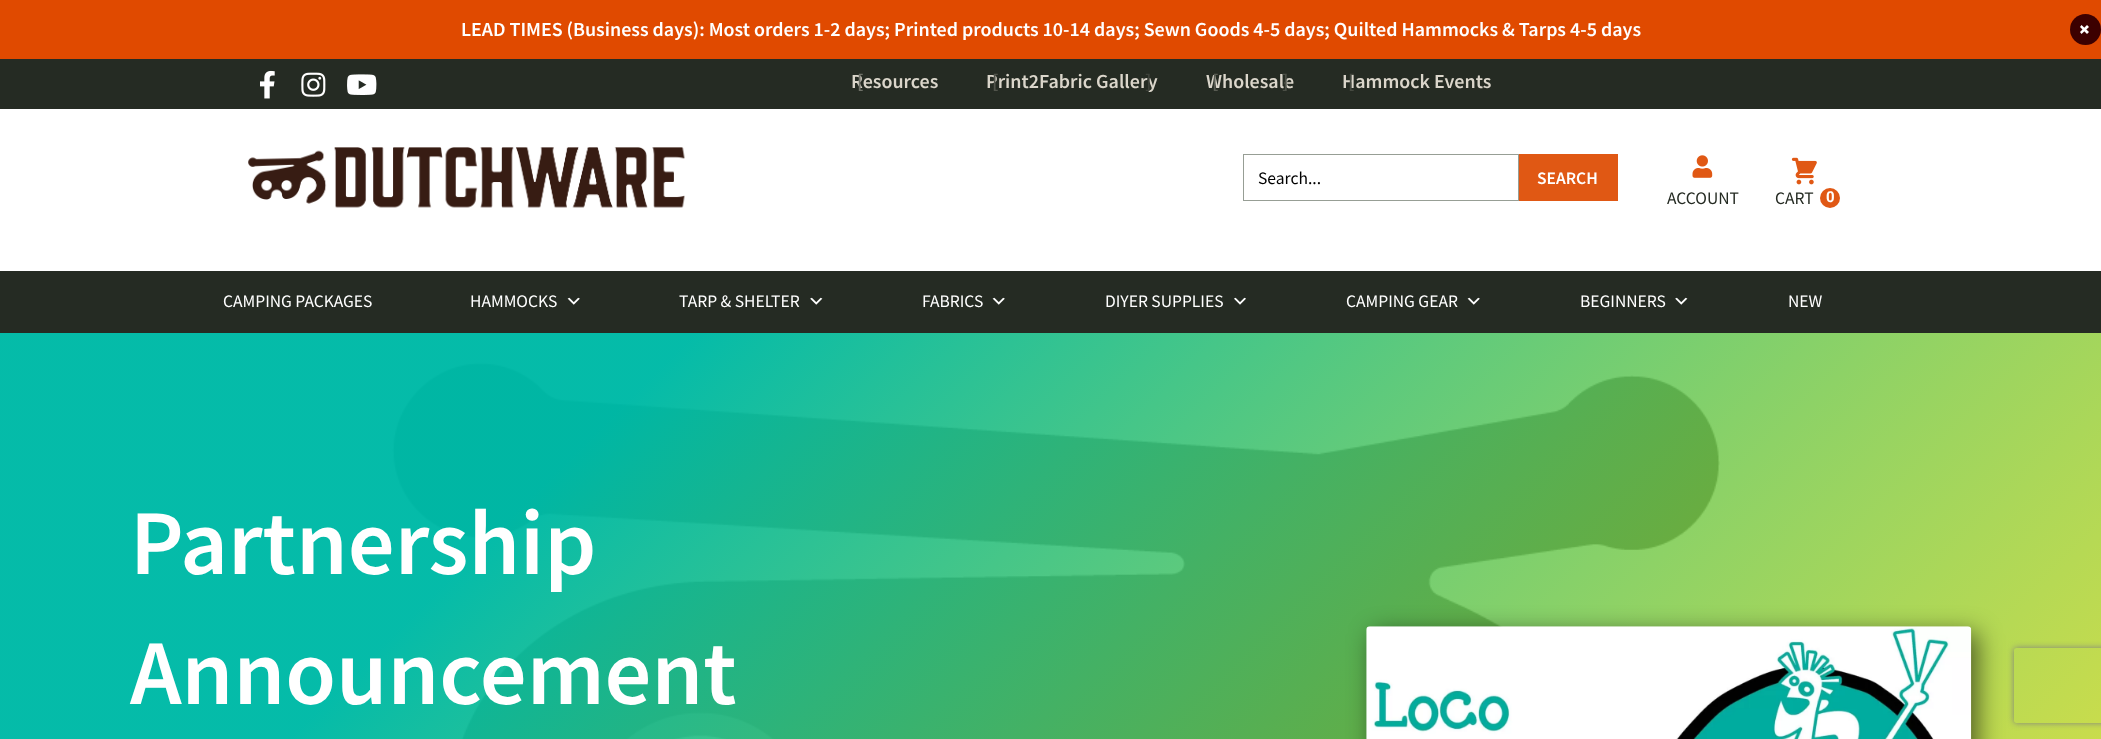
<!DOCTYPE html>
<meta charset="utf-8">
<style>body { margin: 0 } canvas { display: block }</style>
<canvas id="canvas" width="2101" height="739"></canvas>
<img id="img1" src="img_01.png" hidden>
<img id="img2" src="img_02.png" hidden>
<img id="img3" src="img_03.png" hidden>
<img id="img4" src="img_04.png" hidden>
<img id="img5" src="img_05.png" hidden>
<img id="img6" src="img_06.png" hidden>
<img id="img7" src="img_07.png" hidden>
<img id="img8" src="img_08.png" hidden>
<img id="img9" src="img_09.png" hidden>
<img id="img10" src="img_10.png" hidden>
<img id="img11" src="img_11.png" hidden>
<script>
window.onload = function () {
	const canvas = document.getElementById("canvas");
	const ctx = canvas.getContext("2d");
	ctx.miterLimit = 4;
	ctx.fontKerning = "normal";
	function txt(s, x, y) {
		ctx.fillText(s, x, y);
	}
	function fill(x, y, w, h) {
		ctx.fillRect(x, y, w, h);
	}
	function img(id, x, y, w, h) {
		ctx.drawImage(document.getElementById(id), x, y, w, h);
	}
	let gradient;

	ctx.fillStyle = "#E04A00";
	fill(0, 0, 2101, 739);
	ctx.fillStyle = "#3C0000";
	ctx.beginPath();
	ctx.arc(2085.5, 29.5, 15.5, 0, Math.PI * 2);
	ctx.fill();
	ctx.fillStyle = "#FFFFFF";
	ctx.beginPath();
	ctx.moveTo(2080, 32);
	ctx.lineTo(2087, 25);
	ctx.lineTo(2089, 27);
	ctx.lineTo(2081.5, 34);
	ctx.closePath();
	ctx.fill();
	ctx.beginPath();
	ctx.moveTo(2081.5, 25);
	ctx.lineTo(2089, 32);
	ctx.lineTo(2087, 34);
	ctx.lineTo(2080, 27);
	ctx.closePath();
	ctx.fill();
	ctx.fillStyle = "#252B23";
	fill(0, 59, 2101, 50);
	img("img1", 260, 70, 15, 29);
	img("img2", 301, 72, 25, 25);
	img("img3", 347, 74, 30, 21);
	ctx.fillStyle = "#FFFFFF";
	fill(0, 109, 2101, 162);
	img("img4", 248, 147, 437, 61);
	ctx.strokeStyle = "#979E95";
	ctx.strokeRect(1243.5, 154.5, 275, 46);
	ctx.fillStyle = "#E05814";
	fill(1519, 154, 99, 47);
	img("img5", 1692, 155, 21, 23);
	img("img6", 1791, 157, 26, 28);
	ctx.fillStyle = "#E05815";
	ctx.beginPath();
	ctx.arc(1830, 198, 10, 0, Math.PI * 2);
	ctx.fill();
	ctx.fillStyle = "#252B23";
	fill(0, 271, 2101, 62);
	img("img7", 567, 297, 13, 8);
	img("img8", 810, 297, 13, 8);
	img("img7", 992, 297, 13, 8);
	img("img9", 1234, 297, 12, 8);
	img("img7", 1467, 297, 13, 8);
	img("img8", 1675, 297, 13, 8);
	ctx.fillStyle = "#FFFFFF";
	fill(0, 333, 2101, 406);
	img("img10", 392, 362, 1328, 377);
	gradient = ctx.createLinearGradient(283, 38, 1818, 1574);
	gradient.addColorStop(0.23, "rgba(0, 186, 167, 0.98)");
	gradient.addColorStop(0.94, "rgba(224, 216, 0, 0.75)");
	ctx.fillStyle = gradient;
	fill(0, 333, 2101, 406);
	ctx.fillStyle = "rgba(0, 0, 0, 0.56)";
	ctx.filter = "blur(12.5px)";
	ctx.beginPath();
	ctx.roundRect(1373, 633, 605, 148, 4);
	ctx.fill();
	ctx.filter = "none";
	img("img11", 1366, 626, 606, 113);
	ctx.save();
	ctx.beginPath();
	ctx.moveTo(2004, 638);
	ctx.lineTo(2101, 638);
	ctx.lineTo(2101, 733);
	ctx.lineTo(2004, 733);
	ctx.closePath();
	ctx.moveTo(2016.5, 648);
	ctx.lineTo(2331.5, 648);
	ctx.bezierCurveTo(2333, 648, 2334, 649, 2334, 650.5);
	ctx.lineTo(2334, 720.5);
	ctx.bezierCurveTo(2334, 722, 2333, 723, 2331.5, 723);
	ctx.lineTo(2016.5, 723);
	ctx.bezierCurveTo(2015, 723, 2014, 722, 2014, 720.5);
	ctx.lineTo(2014, 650.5);
	ctx.bezierCurveTo(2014, 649, 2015, 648, 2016.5, 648);
	ctx.closePath();
	ctx.clip("evenodd");
	ctx.fillStyle = "#808080";
	ctx.filter = "blur(3px)";
	ctx.beginPath();
	ctx.roundRect(2014, 648, 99, 75, 2.5);
	ctx.fill();
	ctx.filter = "none";
	ctx.restore();
	ctx.font = "600 20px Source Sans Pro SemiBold";
	ctx.fillStyle = "#FFFFFF";
	txt("LEAD TIMES (Business days): Most orders 1-2 days; Printed products 10-14 days; Sewn Goods 4-5 days; Quilted Hammocks & Tarps 4-5 days", 461, 36);
	ctx.fillStyle = "#DBD6CB";
	txt("Resources", 851, 88);
	ctx.fillStyle = "#6E7067";
	txt("[", 857, 88);
	ctx.fillStyle = "#DBD6CB";
	txt("Print2Fabric Gallery", 986, 88);
	ctx.fillStyle = "#51544B";
	txt("[", 992, 88);
	ctx.fillStyle = "#3D4139";
	txt("]", 1145, 88);
	ctx.fillStyle = "#DBD6CB";
	txt("Wholesale", 1206, 88);
	ctx.fillStyle = "#585B52";
	txt("[", 1212, 88);
	ctx.fillStyle = "#4B4F46";
	txt("]", 1282, 88);
	ctx.fillStyle = "#DBD6CB";
	txt("Hammock Events", 1342, 88);
	ctx.fillStyle = "#454940";
	txt("[", 1348, 88);
	ctx.font = "17.5px Source Sans Pro";
	ctx.fillStyle = "#000000";
	txt("Search...", 1258, 184);
	ctx.font = "600 17.5px Source Sans Pro SemiBold";
	ctx.fillStyle = "#FFFFFF";
	txt("SEARCH", 1537, 184);
	ctx.font = "17.5px Source Sans Pro";
	ctx.fillStyle = "#252B23";
	txt("ACCOUNT", 1667, 204);
	txt("CART", 1775, 204);
	ctx.font = "bold 15px Roboto";
	ctx.fillStyle = "#FFFFFF";
	txt("0", 1826, 202);
	ctx.font = "17.5px Source Sans Pro";
	txt("CAMPING PACKAGES", 223, 307);
	txt("HAMMOCKS", 470, 307);
	txt("TARP & SHELTER", 679, 307);
	txt("FABRICS", 922, 307);
	txt("DIYER SUPPLIES", 1105, 307);
	txt("CAMPING GEAR", 1346, 307);
	txt("BEGINNERS", 1580, 307);
	txt("NEW", 1788, 307);
	ctx.font = "600 92.5px Source Sans Pro SemiBold";
	txt("Partnership", 130, 574);
	txt("Announcement", 130, 704);
};
</script>
